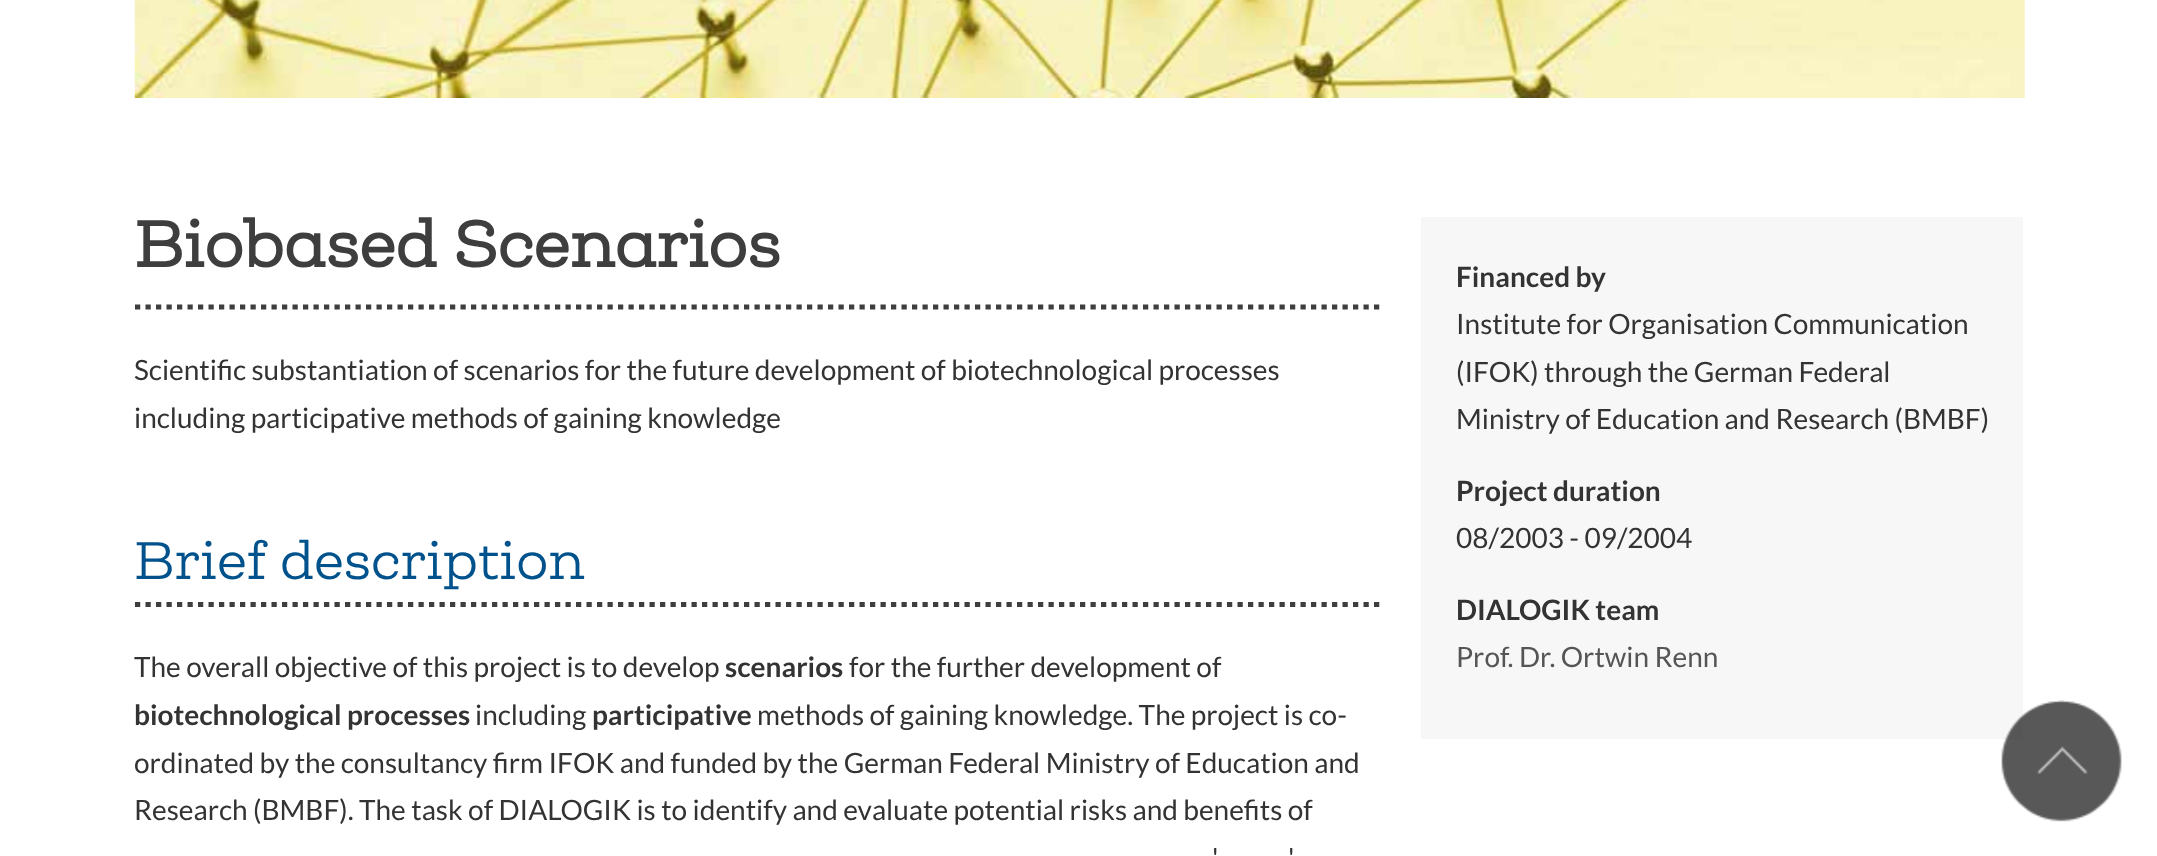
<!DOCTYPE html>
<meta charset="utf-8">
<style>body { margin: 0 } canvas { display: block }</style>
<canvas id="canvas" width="2157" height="856"></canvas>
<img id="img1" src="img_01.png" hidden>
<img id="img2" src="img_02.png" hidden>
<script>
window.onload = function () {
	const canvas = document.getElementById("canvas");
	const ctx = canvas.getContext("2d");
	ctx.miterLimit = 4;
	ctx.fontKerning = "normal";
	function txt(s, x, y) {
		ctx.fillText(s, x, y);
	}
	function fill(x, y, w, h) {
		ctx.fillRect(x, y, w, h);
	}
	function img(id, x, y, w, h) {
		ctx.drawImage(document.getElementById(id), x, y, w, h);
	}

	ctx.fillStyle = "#FFFFFF";
	fill(0, 0, 2157, 856);
	img("img1", 134, 0, 1891, 98);
	ctx.beginPath();
	ctx.moveTo(135, 307);
	ctx.lineTo(1381, 307);
	ctx.strokeStyle = "#3E3E3E";
	ctx.lineWidth = 5.2;
	ctx.setLineDash([5.25, 5.25]);
	ctx.stroke();
	ctx.beginPath();
	ctx.moveTo(135, 604.5);
	ctx.lineTo(1381, 604.5);
	ctx.stroke();
	ctx.fillStyle = "#F7F7F7";
	fill(1421, 217, 602, 522);
	img("img2", 2001, 700, 121, 122);
	ctx.font = "bold 61.6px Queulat";
	ctx.fillStyle = "#3E3E3E";
	txt("Biobased Scenarios", 134, 267);
	ctx.font = "28px Lato";
	ctx.fillStyle = "#333333";
	txt("Scientific substantiation of scenarios for the future development of biotechnological processes", 134, 380);
	txt("including participative methods of gaining knowledge", 134, 428);
	ctx.font = "50.5px Queulat";
	ctx.fillStyle = "#00528C";
	txt("Brief description", 134, 579);
	ctx.font = "28px Lato";
	ctx.fillStyle = "#333333";
	txt("The overall objective of this project is to develop", 134, 677);
	ctx.font = "bold 28px Lato";
	txt("scenarios", 725, 677);
	ctx.font = "28px Lato";
	txt("for the further development of", 849, 677);
	ctx.font = "bold 28px Lato";
	txt("biotechnological processes", 134, 725);
	ctx.font = "28px Lato";
	txt("including", 475, 725);
	ctx.font = "bold 28px Lato";
	txt("participative", 592, 725);
	ctx.font = "28px Lato";
	txt("methods of gaining knowledge. The project is co-", 757, 725);
	txt("ordinated by the consultancy firm IFOK and funded by the German Federal Ministry of Education and", 134, 773);
	txt("Research (BMBF). The task of DIALOGIK is to identify and evaluate potential risks and benefits of", 134, 820);
	txt("'", 1212, 868);
	txt("'", 1288, 868);
	ctx.font = "bold 28px Lato";
	txt("Financed by", 1456, 287);
	ctx.font = "28px Lato";
	txt("Institute for Organisation Communication", 1456, 334);
	txt("(IFOK) through the German Federal", 1456, 382);
	txt("Ministry of Education and Research (BMBF)", 1456, 429);
	ctx.font = "bold 28px Lato";
	txt("Project duration", 1456, 501);
	ctx.font = "28px Lato";
	txt("08/2003 - 09/2004", 1456, 548);
	ctx.font = "bold 28px Lato";
	txt("DIALOGIK team", 1456, 620);
	ctx.font = "28px Lato";
	ctx.fillStyle = "#555555";
	txt("Prof. Dr. Ortwin Renn", 1456, 667);
};
</script>
